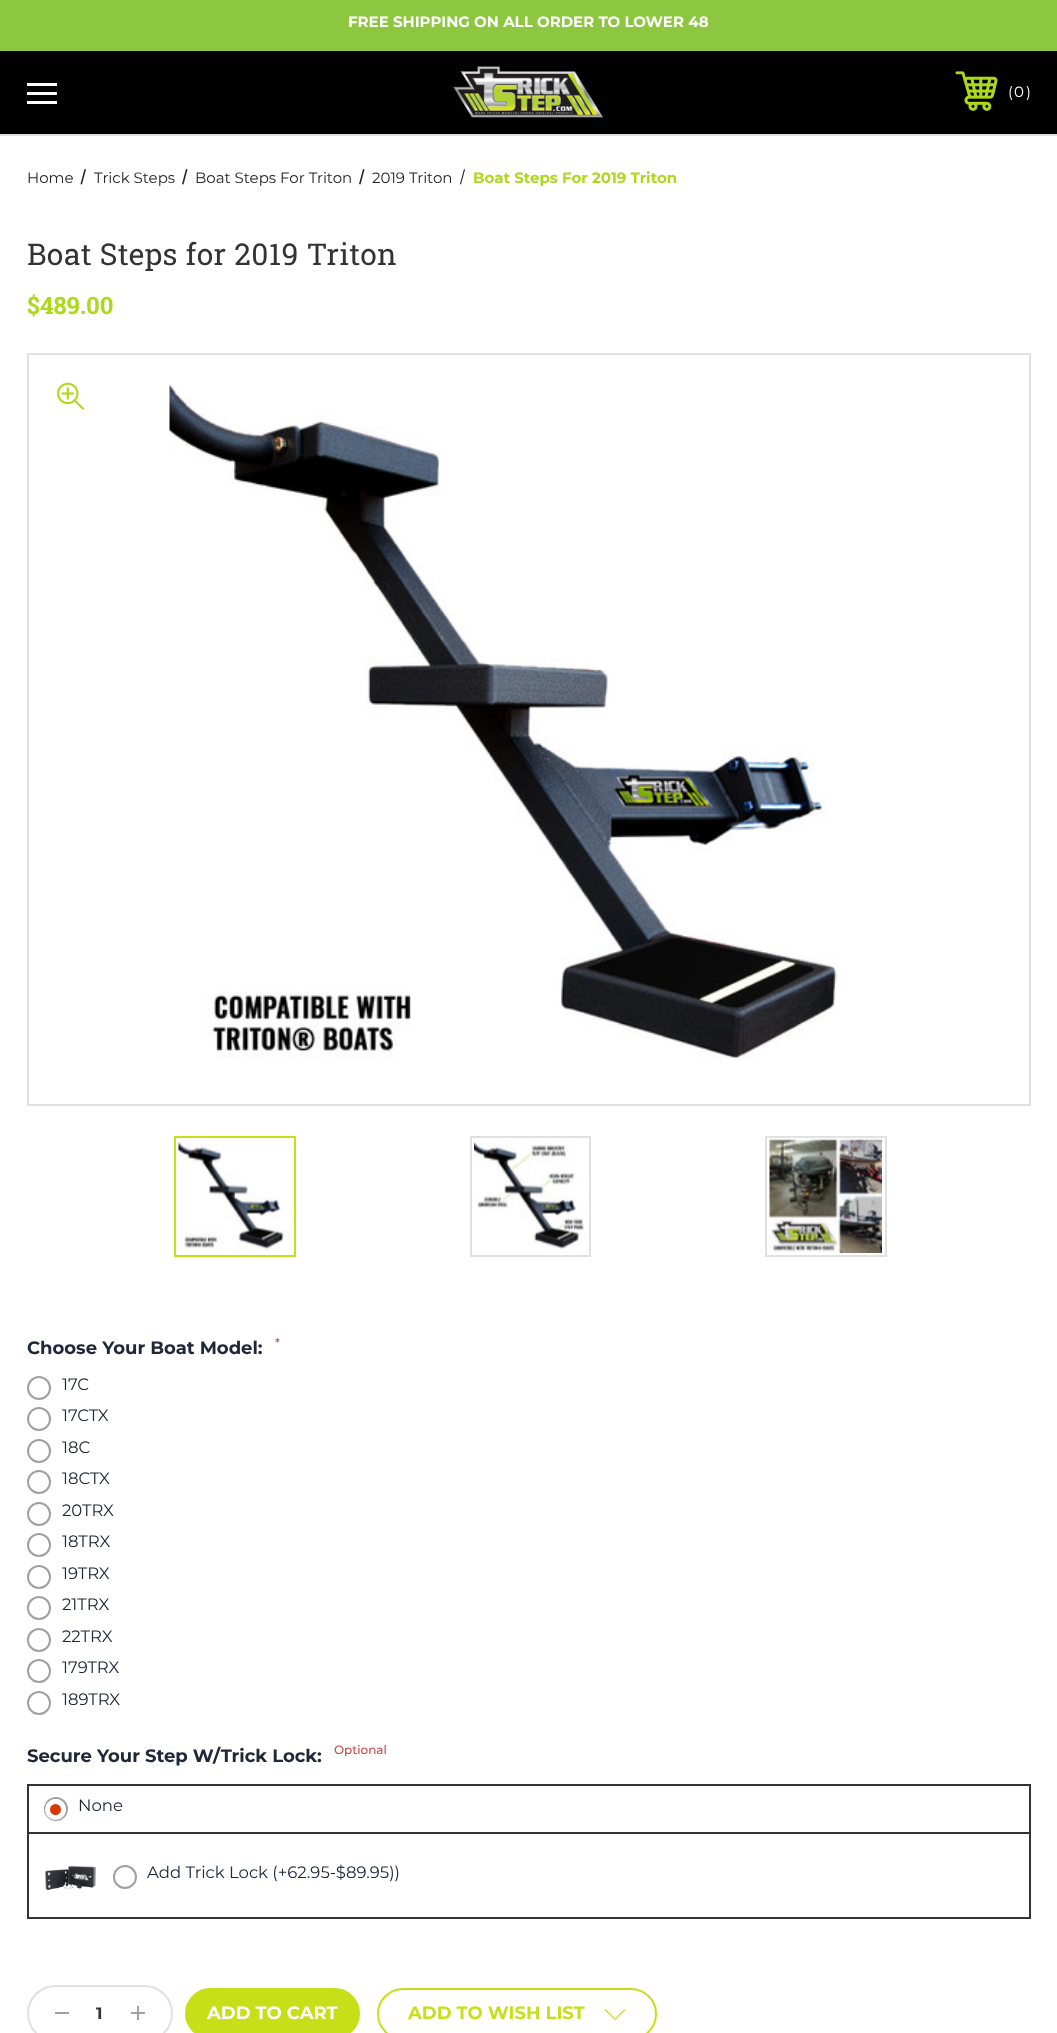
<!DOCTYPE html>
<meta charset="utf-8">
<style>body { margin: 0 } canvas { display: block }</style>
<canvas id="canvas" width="1057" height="2033"></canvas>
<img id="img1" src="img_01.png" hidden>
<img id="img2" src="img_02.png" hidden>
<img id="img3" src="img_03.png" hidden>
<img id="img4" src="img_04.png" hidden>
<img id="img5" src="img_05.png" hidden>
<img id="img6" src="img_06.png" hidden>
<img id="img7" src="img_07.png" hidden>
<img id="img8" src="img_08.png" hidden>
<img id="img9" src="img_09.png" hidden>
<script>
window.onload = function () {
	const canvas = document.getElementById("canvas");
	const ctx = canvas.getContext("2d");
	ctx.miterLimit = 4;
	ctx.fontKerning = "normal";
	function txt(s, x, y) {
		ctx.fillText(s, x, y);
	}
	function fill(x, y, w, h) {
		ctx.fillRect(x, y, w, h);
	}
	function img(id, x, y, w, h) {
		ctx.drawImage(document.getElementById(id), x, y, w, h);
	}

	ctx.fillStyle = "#FFFFFF";
	fill(0, 0, 1057, 2033);
	ctx.fillStyle = "#8DC63F";
	fill(0, 0, 1057, 51);
	ctx.fillStyle = "#010101";
	fill(0, 51, 1057, 83);
	ctx.fillStyle = "#E1E1E1";
	fill(0, 134, 1057, 2);
	ctx.fillStyle = "#FFFFFF";
	fill(27, 92, 30, 3);
	fill(27, 83, 30, 3);
	fill(27, 101, 30, 3);
	img("img1", 453, 66, 150, 52);
	img("img2", 955, 71, 43, 40);
	ctx.fillStyle = "#242526";
	ctx.beginPath();
	ctx.moveTo(84.5, 169);
	ctx.lineTo(86, 169.5);
	ctx.lineTo(82, 184.5);
	ctx.lineTo(80.5, 184);
	ctx.closePath();
	ctx.fill();
	ctx.beginPath();
	ctx.moveTo(186, 169);
	ctx.lineTo(187.5, 169.5);
	ctx.lineTo(183.5, 184.5);
	ctx.lineTo(182, 184);
	ctx.closePath();
	ctx.fill();
	ctx.beginPath();
	ctx.moveTo(363, 169);
	ctx.lineTo(364.5, 169.5);
	ctx.lineTo(360.5, 184.5);
	ctx.lineTo(359, 184);
	ctx.closePath();
	ctx.fill();
	ctx.beginPath();
	ctx.moveTo(464, 169);
	ctx.lineTo(465, 169.5);
	ctx.lineTo(461, 184.5);
	ctx.lineTo(460, 184);
	ctx.closePath();
	ctx.fill();
	ctx.strokeStyle = "#E1E1E1";
	ctx.lineWidth = 2;
	ctx.strokeRect(28, 354, 1002, 751);
	img("img3", 169, 384, 668, 676);
	img("img4", 57, 382, 27, 28);
	ctx.strokeStyle = "#C7DF19";
	ctx.strokeRect(175, 1137, 120, 119);
	img("img5", 178, 1140, 112, 113);
	ctx.strokeStyle = "#E1E1E1";
	ctx.strokeRect(471, 1137, 119, 119);
	img("img6", 474, 1140, 111, 113);
	ctx.strokeRect(766, 1137, 120, 119);
	img("img7", 769, 1139, 113, 114);
	ctx.beginPath();
	ctx.arc(39, 1388, 11, 0, Math.PI * 2);
	ctx.strokeStyle = "#A0A0A0";
	ctx.stroke();
	ctx.beginPath();
	ctx.arc(39, 1419, 11, 0, Math.PI * 2);
	ctx.stroke();
	ctx.beginPath();
	ctx.arc(39, 1451, 11, 0, Math.PI * 2);
	ctx.stroke();
	ctx.beginPath();
	ctx.arc(39, 1482, 11, 0, Math.PI * 2);
	ctx.stroke();
	ctx.beginPath();
	ctx.arc(39, 1514, 11, 0, Math.PI * 2);
	ctx.stroke();
	ctx.beginPath();
	ctx.arc(39, 1545, 11, 0, Math.PI * 2);
	ctx.stroke();
	ctx.beginPath();
	ctx.arc(39, 1577, 11, 0, Math.PI * 2);
	ctx.stroke();
	ctx.beginPath();
	ctx.arc(39, 1608, 11, 0, Math.PI * 2);
	ctx.stroke();
	ctx.beginPath();
	ctx.arc(39, 1640, 11, 0, Math.PI * 2);
	ctx.stroke();
	ctx.beginPath();
	ctx.arc(39, 1671, 11, 0, Math.PI * 2);
	ctx.stroke();
	ctx.beginPath();
	ctx.arc(39, 1703, 11, 0, Math.PI * 2);
	ctx.stroke();
	ctx.strokeStyle = "#333333";
	ctx.strokeRect(28, 1785, 1002, 133);
	ctx.beginPath();
	ctx.arc(56, 1809, 11, 0, Math.PI * 2);
	ctx.strokeStyle = "#A0A0A0";
	ctx.stroke();
	ctx.fillStyle = "#DC3700";
	ctx.beginPath();
	ctx.arc(55.5, 1809.5, 8, 0, Math.PI * 2);
	ctx.fill();
	ctx.strokeStyle = "#FFFFFF";
	ctx.lineWidth = 5;
	ctx.stroke();
	ctx.fillStyle = "#333333";
	fill(29, 1832, 1000, 2);
	img("img8", 45, 1865, 51, 25);
	ctx.beginPath();
	ctx.arc(125, 1877, 11, 0, Math.PI * 2);
	ctx.strokeStyle = "#A0A0A0";
	ctx.lineWidth = 2;
	ctx.stroke();
	ctx.beginPath();
	ctx.roundRect(28, 1986, 144, 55, 27.5);
	ctx.strokeStyle = "#E1E1E1";
	ctx.stroke();
	ctx.fillStyle = "#A1A1A1";
	fill(55, 2012, 14, 2);
	img("img9", 131, 2006, 14, 14);
	ctx.fillStyle = "#C7DF19";
	ctx.beginPath();
	ctx.roundRect(186, 1989, 173, 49, 24.5);
	ctx.fill();
	ctx.strokeStyle = "#C7DF19";
	ctx.stroke();
	ctx.beginPath();
	ctx.roundRect(378, 1989, 278, 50, 25);
	ctx.stroke();
	ctx.beginPath();
	ctx.moveTo(615, 2018.5);
	ctx.lineTo(624.5, 2009);
	ctx.lineTo(625.5, 2010);
	ctx.lineTo(615, 2020);
	ctx.lineTo(604.5, 2010);
	ctx.lineTo(605.5, 2009);
	ctx.closePath();
	ctx.fill("evenodd");
	ctx.font = "bold 15px Montserrat";
	ctx.fillStyle = "#FFFFFF";
	txt("FREE SHIPPING ON ALL ORDER TO LOWER 48", 348, 27);
	ctx.font = "15px Montserrat";
	txt("(", 1008, 97);
	txt("0", 1014, 97);
	txt(")", 1026, 97);
	ctx.fillStyle = "#242526";
	txt("Home", 27, 183);
	txt("Trick Steps", 94, 183);
	txt("Boat Steps For Triton", 195, 183);
	txt("2019 Triton", 372, 183);
	ctx.font = "bold 15px Montserrat";
	ctx.fillStyle = "#AED91B";
	txt("Boat Steps For 2019 Triton", 473, 183);
	ctx.letterSpacing = "0.4px";
	ctx.font = "30px Roboto Slab";
	ctx.fillStyle = "#333333";
	txt("Boat Steps for 2019 Triton", 27, 265);
	ctx.letterSpacing = "0px";
	ctx.font = "bold 24px Roboto Slab";
	ctx.fillStyle = "#AED91B";
	txt("$489.00", 27, 314);
	ctx.font = "bold 18px Montserrat";
	ctx.fillStyle = "#202738";
	txt("Choose Your Boat Model:", 27, 1354);
	ctx.font = "500 12px Montserrat";
	ctx.fillStyle = "#CC4749";
	txt("*", 275, 1347);
	ctx.font = "16.5px Montserrat";
	ctx.fillStyle = "#202738";
	txt("17C", 62, 1390);
	txt("17CTX", 62, 1421);
	txt("18C", 62, 1453);
	txt("18CTX", 62, 1484);
	txt("20TRX", 62, 1516);
	txt("18TRX", 62, 1547);
	txt("19TRX", 62, 1579);
	txt("21TRX", 62, 1610);
	txt("22TRX", 62, 1642);
	txt("179TRX", 62, 1673);
	txt("189TRX", 62, 1705);
	ctx.font = "bold 18px Montserrat";
	txt("Secure Your Step W/Trick Lock:", 27, 1762);
	ctx.font = "500 12px Montserrat";
	ctx.fillStyle = "#CC4749";
	txt("Optional", 334, 1754);
	ctx.font = "16.5px Montserrat";
	ctx.fillStyle = "#202738";
	txt("None", 78, 1811);
	txt("Add Trick Lock (+62.95-$89.95))", 147, 1878);
	ctx.font = "bold 16.5px Montserrat";
	ctx.fillStyle = "#333333";
	txt("1", 96, 2019);
	ctx.font = "bold 18px Montserrat";
	ctx.fillStyle = "#FFFFFF";
	txt("ADD TO CART", 207, 2019);
	ctx.fillStyle = "#C7DF19";
	txt("ADD TO WISH LIST", 408, 2019);
};
</script>
